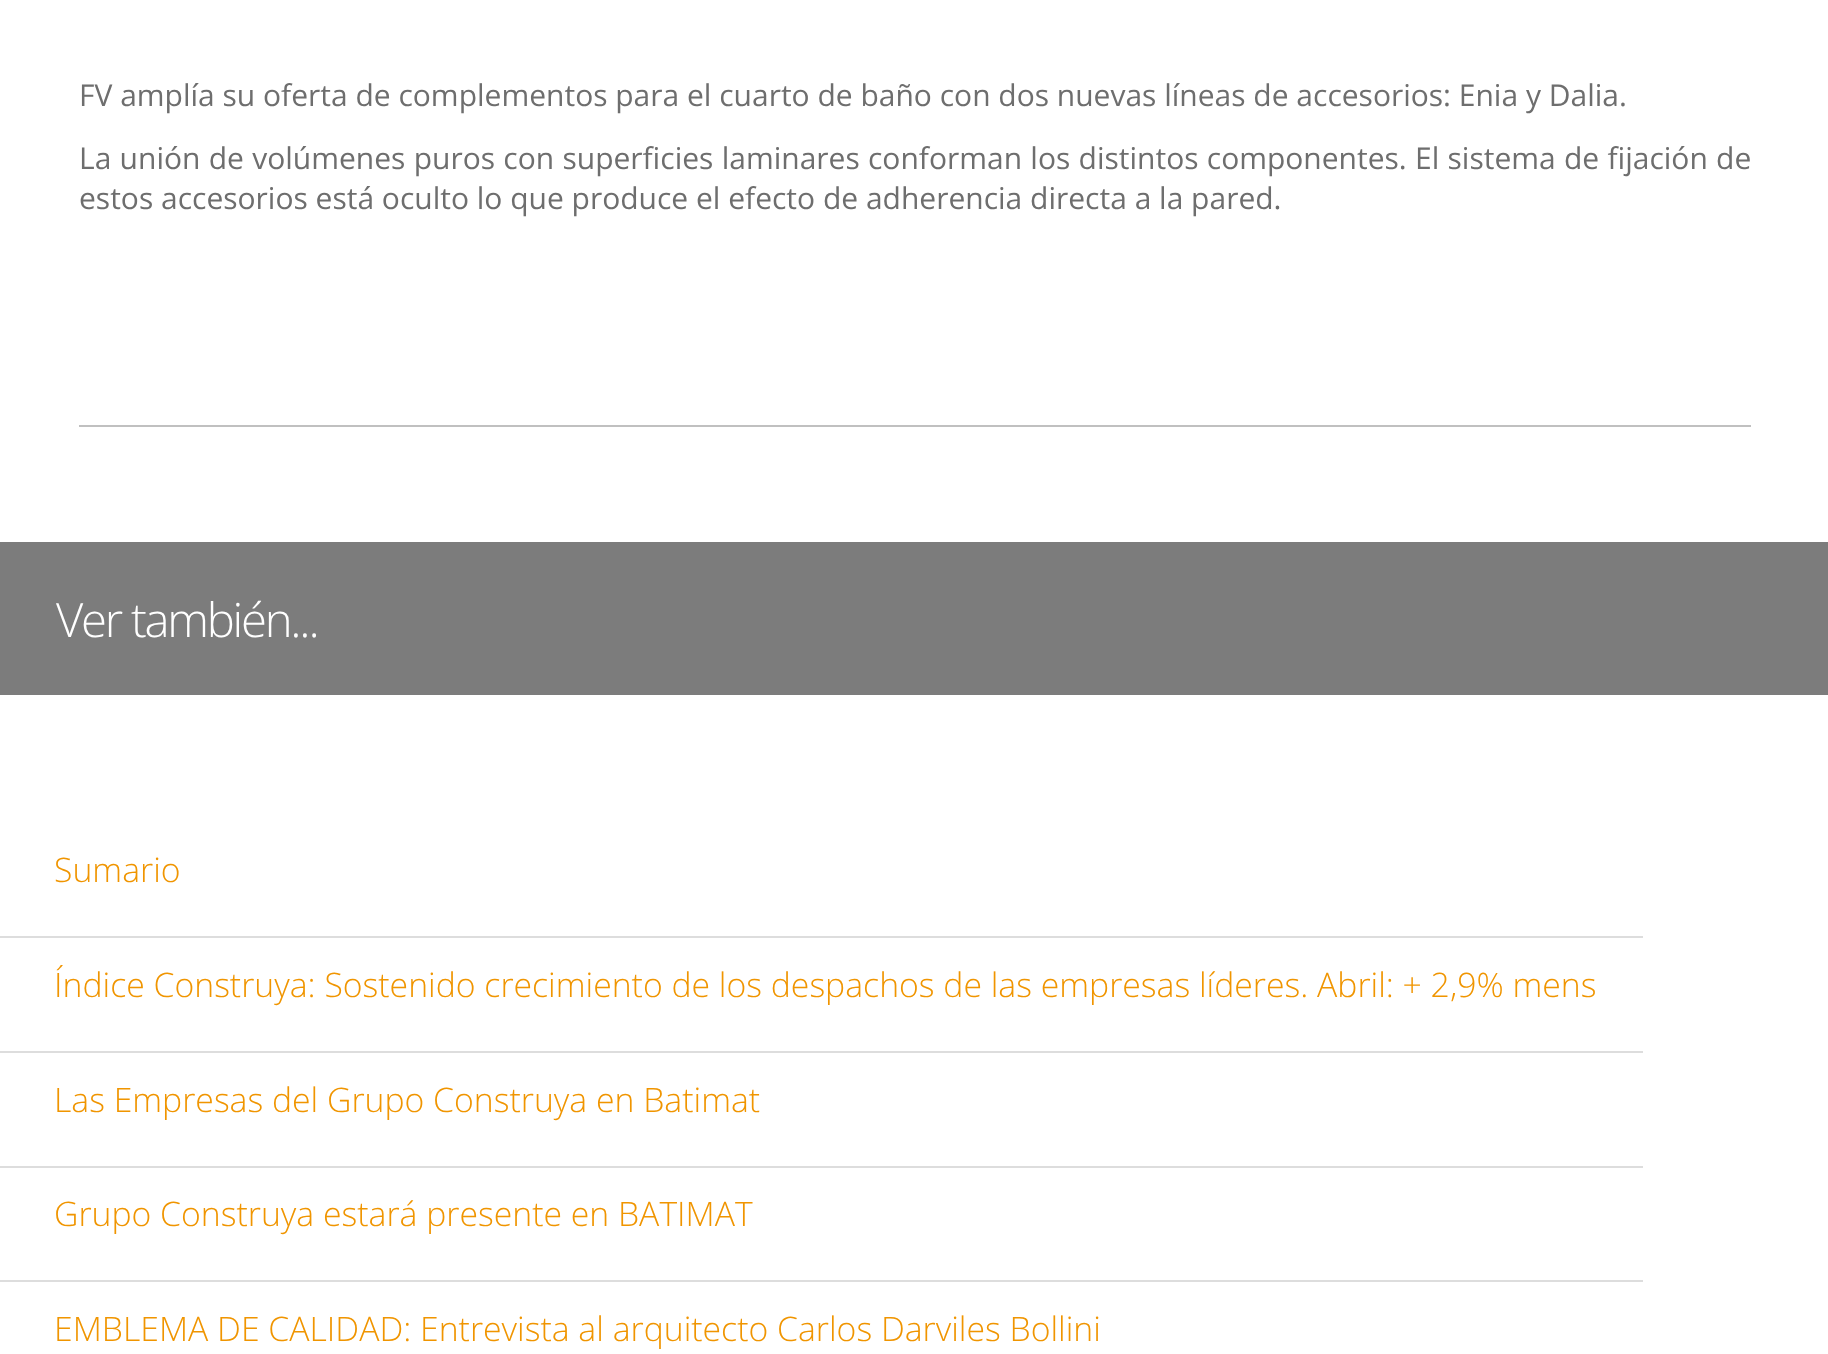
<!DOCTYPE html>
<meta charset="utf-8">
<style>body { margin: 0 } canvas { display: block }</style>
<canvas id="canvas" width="1828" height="1354"></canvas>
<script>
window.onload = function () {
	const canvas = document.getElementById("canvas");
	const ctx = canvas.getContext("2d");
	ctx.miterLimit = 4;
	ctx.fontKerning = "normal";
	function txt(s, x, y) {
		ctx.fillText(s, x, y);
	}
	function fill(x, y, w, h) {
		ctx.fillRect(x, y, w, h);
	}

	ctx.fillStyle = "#FFFFFF";
	fill(0, 0, 1828, 1354);
	ctx.fillStyle = "#C0C0C0";
	fill(79, 425, 1672, 2);
	ctx.fillStyle = "#7C7C7C";
	fill(0, 542, 1828, 153);
	ctx.fillStyle = "#DDDDDD";
	fill(0, 936, 1643, 2);
	fill(0, 1051, 1643, 2);
	fill(0, 1166, 1643, 2);
	fill(0, 1280, 1643, 2);
	ctx.font = "30px Open Sans";
	ctx.fillStyle = "#6E6E6E";
	txt("FV amplía su oferta de complementos para el cuarto de baño con dos nuevas líneas de accesorios: Enia y Dalia.", 79, 106);
	ctx.wordSpacing = "0.5px";
	txt("La unión de volúmenes puros con superficies laminares conforman los distintos componentes. El sistema de fijación de", 79, 169);
	ctx.wordSpacing = "0px";
	txt("estos accesorios está oculto lo que produce el efecto de adherencia directa a la pared.", 79, 209);
	ctx.letterSpacing = "-2.25px";
	ctx.font = "300 47.25px Open Sans";
	ctx.fillStyle = "#FFFFFF";
	txt("Ver también...", 56, 637);
	ctx.letterSpacing = "0px";
	ctx.font = "300 33.75px Open Sans";
	ctx.fillStyle = "#F09500";
	txt("Sumario", 54, 882);
	txt("Índice Construya: Sostenido crecimiento de los despachos de las empresas líderes. Abril: + 2,9% mens", 54, 997);
	txt("Las Empresas del Grupo Construya en Batimat", 54, 1112);
	txt("Grupo Construya estará presente en BATIMAT", 54, 1226);
	txt("EMBLEMA DE CALIDAD: Entrevista al arquitecto Carlos Darviles Bollini", 54, 1341);
};
</script>
